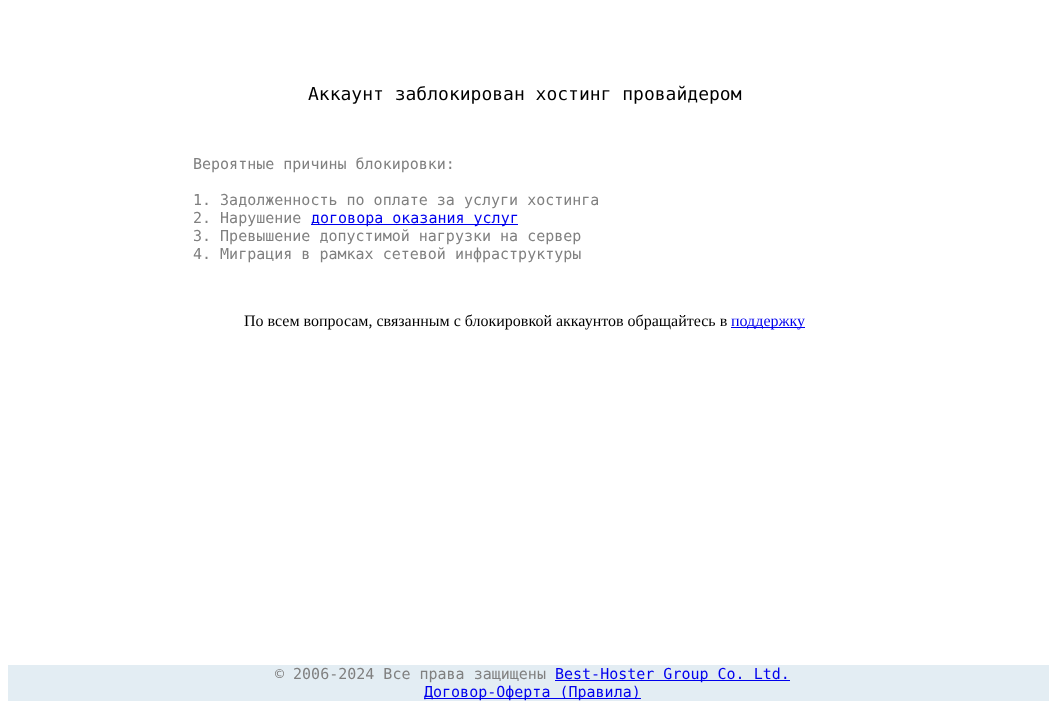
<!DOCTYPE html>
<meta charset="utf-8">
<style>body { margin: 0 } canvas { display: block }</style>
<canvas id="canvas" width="1049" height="701"></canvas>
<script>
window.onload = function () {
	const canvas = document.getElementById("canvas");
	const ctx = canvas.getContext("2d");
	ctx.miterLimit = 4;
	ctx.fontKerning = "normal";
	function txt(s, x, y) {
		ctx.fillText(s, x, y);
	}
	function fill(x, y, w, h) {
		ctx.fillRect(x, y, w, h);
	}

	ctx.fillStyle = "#FFFFFF";
	fill(0, 0, 1049, 701);
	ctx.fillStyle = "#0000EE";
	fill(311, 224, 207, 1);
	fill(731, 327, 74, 1);
	ctx.fillStyle = "#E3EDF3";
	fill(8, 665, 1041, 36);
	ctx.fillStyle = "#0000EE";
	fill(555, 680, 235, 1);
	fill(424, 698, 217, 1);
	ctx.font = "18px DejaVu Sans Mono";
	ctx.fillStyle = "#000000";
	txt("Аккаунт заблокирован хостинг провайдером", 308, 100);
	ctx.font = "15px DejaVu Sans Mono";
	ctx.fillStyle = "#808080";
	txt("Вероятные причины блокировки:", 193, 169);
	txt("1. Задолженность по оплате за услуги хостинга", 193, 205);
	txt("2. Нарушение", 193, 223);
	ctx.fillStyle = "#0000EE";
	txt("договора оказания услуг", 311, 223);
	ctx.fillStyle = "#808080";
	txt("3. Превышение допустимой нагрузки на сервер", 193, 241);
	txt("4. Миграция в рамках сетевой инфраструктуры", 193, 259);
	ctx.font = "16px Liberation Serif";
	ctx.fillStyle = "#000000";
	txt("По всем вопросам, связанным с блокировкой аккаунтов обращайтесь в", 244, 326);
	ctx.fillStyle = "#0000EE";
	txt("поддержку", 731, 326);
	ctx.font = "15px DejaVu Sans Mono";
	ctx.fillStyle = "#808080";
	txt("© 2006-2024 Все права защищены", 275, 679);
	ctx.fillStyle = "#0000EE";
	txt("Best-Hoster Group Co. Ltd.", 555, 679);
	txt("Договор-Оферта (Правила)", 424, 697);
};
</script>
